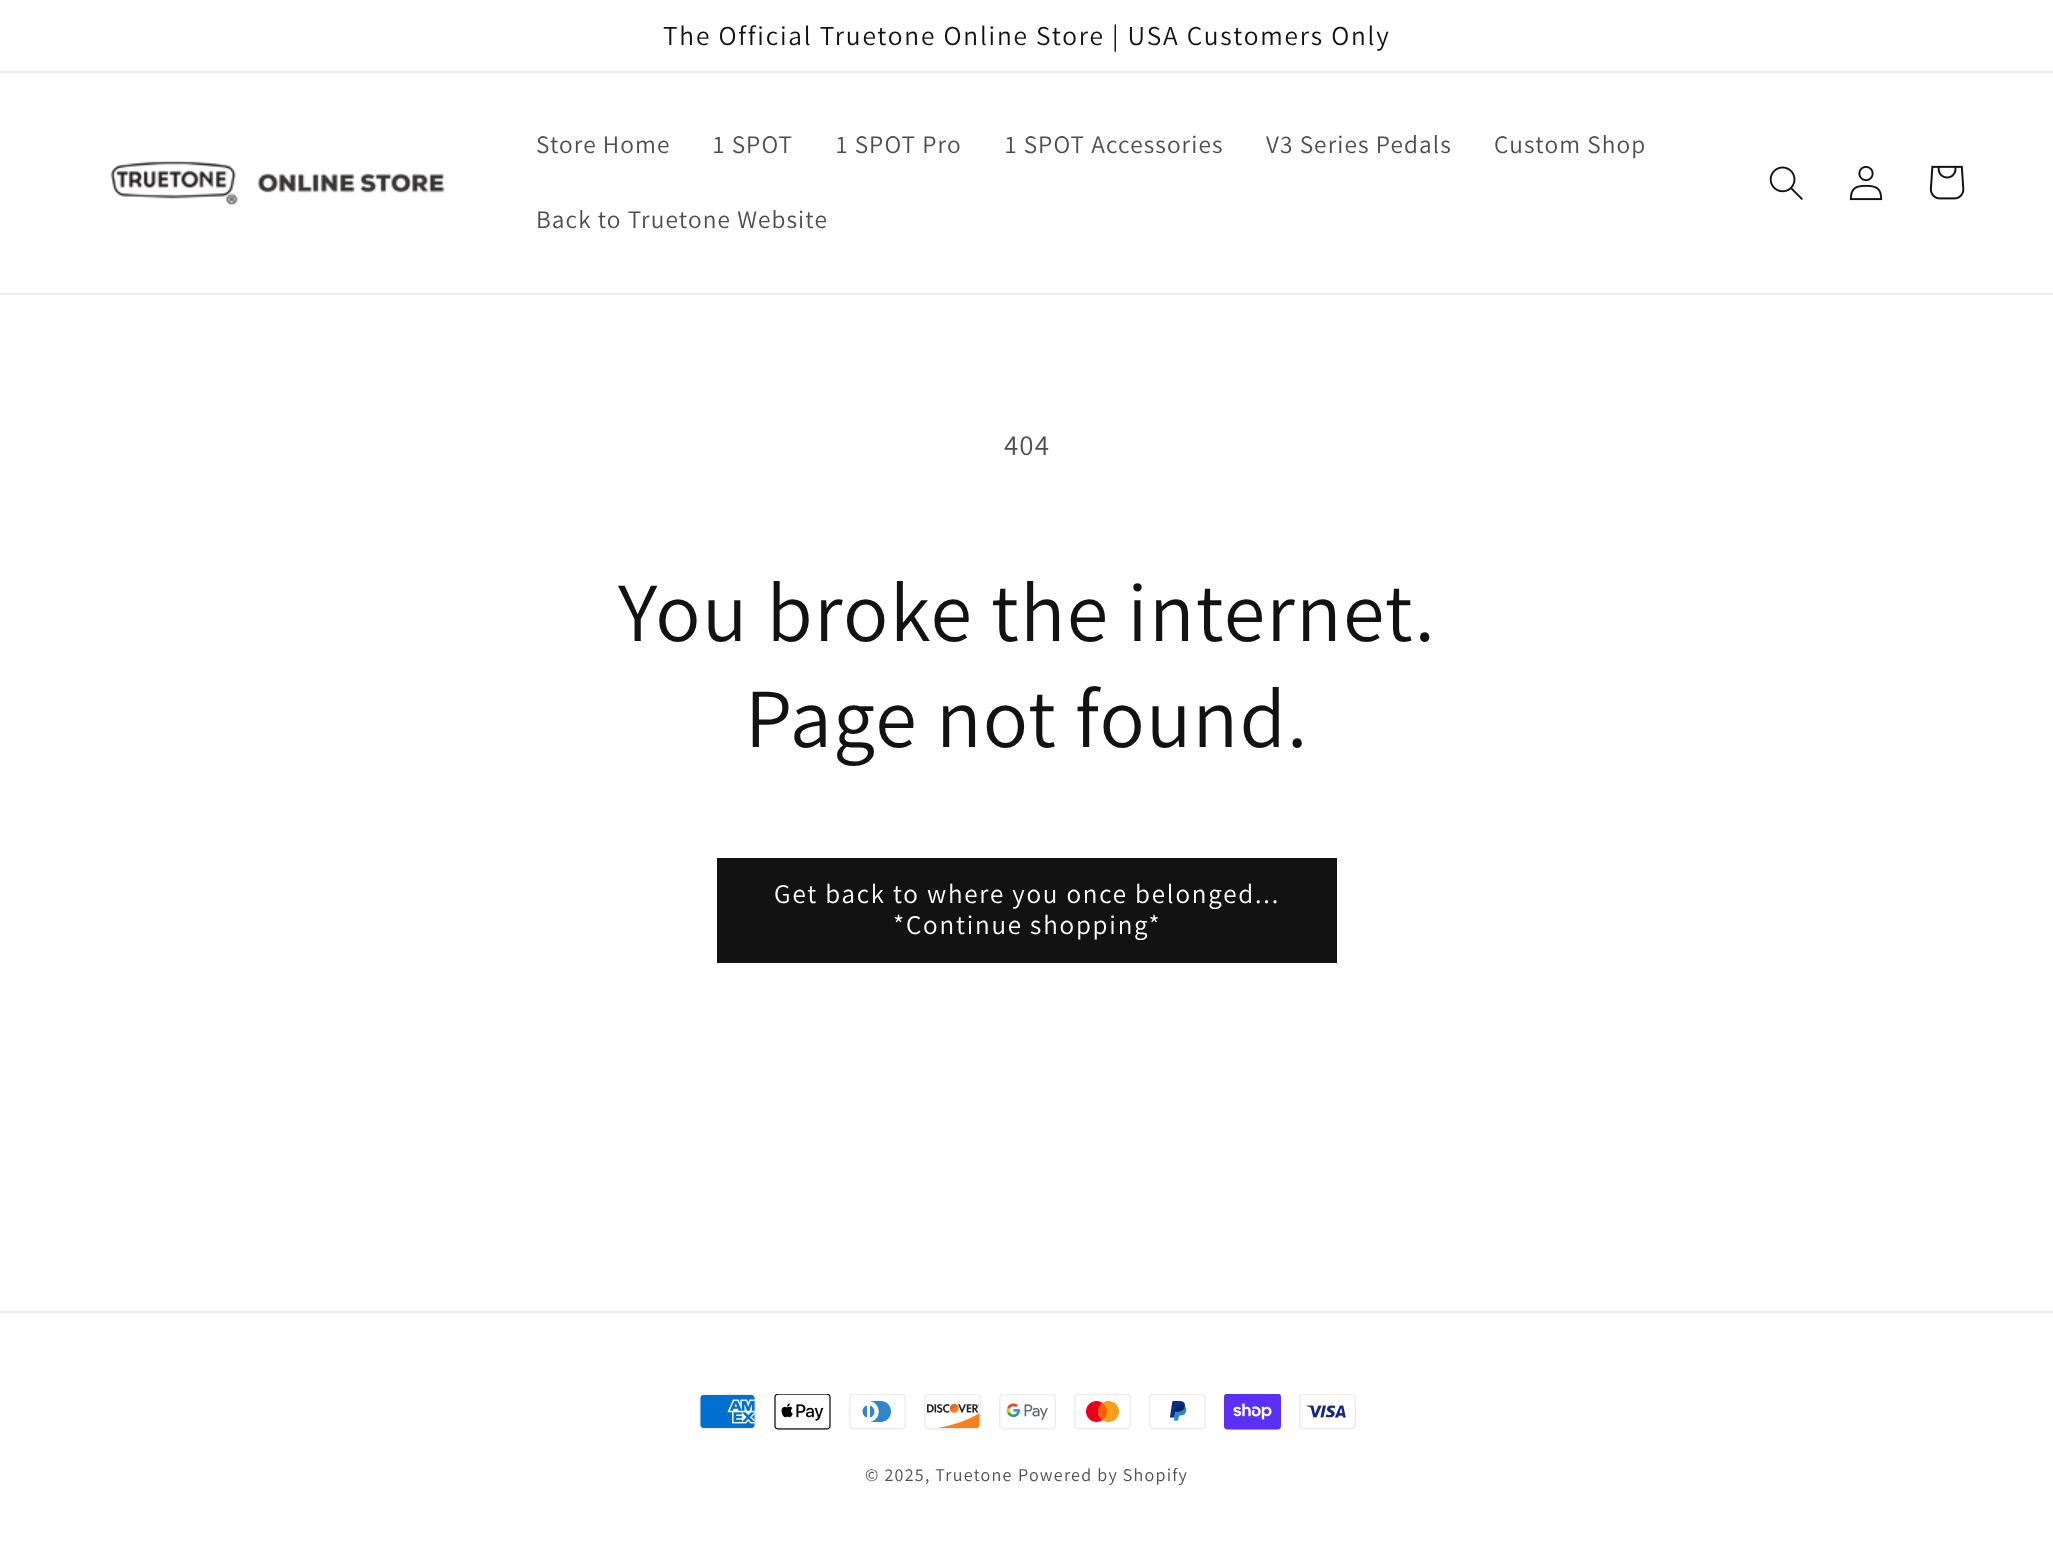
<!DOCTYPE html>
<meta charset="utf-8">
<style>body { margin: 0 } canvas { display: block }</style>
<canvas id="canvas" width="2053" height="1545"></canvas>
<img id="img1" src="img_01.png" hidden>
<img id="img2" src="img_02.png" hidden>
<img id="img3" src="img_03.png" hidden>
<img id="img4" src="img_04.png" hidden>
<img id="img5" src="img_05.png" hidden>
<img id="img6" src="img_06.png" hidden>
<img id="img7" src="img_07.png" hidden>
<img id="img8" src="img_08.png" hidden>
<img id="img9" src="img_09.png" hidden>
<img id="img10" src="img_10.png" hidden>
<img id="img11" src="img_11.png" hidden>
<img id="img12" src="img_12.png" hidden>
<img id="img13" src="img_13.png" hidden>
<script>
window.onload = function () {
	const canvas = document.getElementById("canvas");
	const ctx = canvas.getContext("2d");
	ctx.miterLimit = 4;
	ctx.fontKerning = "normal";
	function txt(s, x, y) {
		ctx.fillText(s, x, y);
	}
	function fill(x, y, w, h) {
		ctx.fillRect(x, y, w, h);
	}
	function img(id, x, y, w, h) {
		ctx.drawImage(document.getElementById(id), x, y, w, h);
	}

	ctx.fillStyle = "#FFFFFF";
	fill(0, 0, 2053, 1545);
	ctx.fillStyle = "#ECECEC";
	fill(0, 71, 2053, 2);
	fill(0, 293, 2053, 2);
	img("img1", 110, 160, 335, 46);
	img("img2", 1769, 166, 34, 34);
	img("img3", 1849, 166, 34, 35);
	img("img4", 1929, 165, 36, 35);
	ctx.strokeStyle = "#121212";
	ctx.lineWidth = 2;
	ctx.strokeRect(718, 859, 618, 103);
	ctx.fillStyle = "#121212";
	fill(719, 860, 616, 101);
	ctx.fillStyle = "#ECECEC";
	fill(0, 1311, 2053, 2);
	img("img5", 699, 1394, 57, 36);
	img("img6", 774, 1394, 57, 36);
	img("img7", 849, 1394, 57, 36);
	img("img8", 924, 1394, 57, 36);
	img("img9", 999, 1394, 57, 36);
	img("img10", 1074, 1394, 57, 36);
	img("img11", 1149, 1394, 57, 36);
	img("img12", 1224, 1394, 57, 36);
	img("img13", 1299, 1394, 57, 36);
	ctx.letterSpacing = "1.8px";
	ctx.font = "27.3px Assistant";
	ctx.fillStyle = "#121212";
	txt("The Official Truetone Online Store | USA Customers Only", 663, 45);
	ctx.letterSpacing = "1.1px";
	ctx.font = "25.25px Assistant";
	ctx.fillStyle = "#4D4D4D";
	txt("Store Home", 536, 153);
	txt("1 SPOT", 713, 153);
	txt("1 SPOT Pro", 836, 153);
	txt("1 SPOT Accessories", 1005, 153);
	txt("V3 Series Pedals", 1266, 153);
	txt("Custom Shop", 1494, 153);
	txt("Back to Truetone Website", 536, 228);
	ctx.font = "29px Assistant";
	txt("404", 1004, 455);
	ctx.letterSpacing = "1.25px";
	ctx.font = "84px Assistant";
	ctx.fillStyle = "#121212";
	txt("You broke the internet.", 618, 641);
	txt("Page not found.", 745, 747);
	ctx.letterSpacing = "1.8px";
	ctx.font = "27px Assistant";
	ctx.fillStyle = "#FFFFFF";
	txt("Get back to where you once belonged...", 774, 903);
	txt("*Continue shopping*", 893, 934);
	ctx.letterSpacing = "1.25px";
	ctx.font = "18px Assistant";
	ctx.fillStyle = "#4D4D4D";
	txt("© 2025, Truetone", 865, 1481);
	txt("Powered by Shopify", 1018, 1481);
};
</script>
